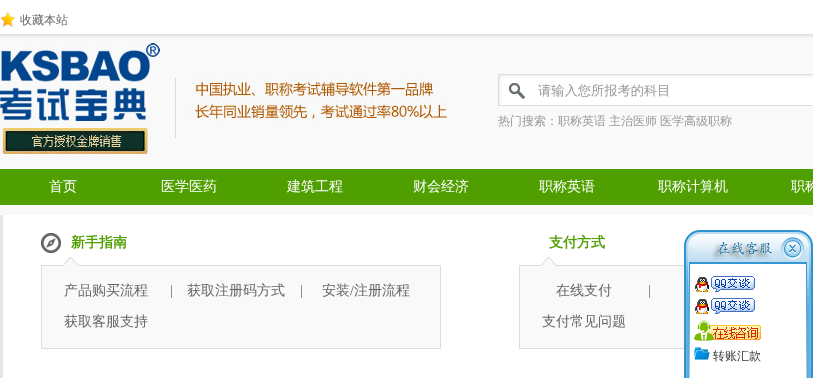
<!DOCTYPE html>
<meta charset="utf-8">
<style>body { margin: 0 } canvas { display: block }</style>
<canvas id="canvas" width="813" height="378"></canvas>
<img id="img1" src="img_01.png" hidden>
<img id="img2" src="img_02.png" hidden>
<img id="img3" src="img_03.png" hidden>
<img id="img4" src="img_04.png" hidden>
<img id="img5" src="img_05.png" hidden>
<img id="img6" src="img_06.png" hidden>
<img id="img7" src="img_07.png" hidden>
<img id="img8" src="img_08.png" hidden>
<img id="img9" src="img_09.png" hidden>
<img id="img10" src="img_10.png" hidden>
<img id="img11" src="img_11.png" hidden>
<img id="img12" src="img_12.png" hidden>
<img id="img13" src="img_13.png" hidden>
<script>
window.onload = function () {
	const canvas = document.getElementById("canvas");
	const ctx = canvas.getContext("2d");
	ctx.miterLimit = 4;
	ctx.fontKerning = "normal";
	function txt(s, x, y) {
		ctx.fillText(s, x, y);
	}
	function fill(x, y, w, h) {
		ctx.fillRect(x, y, w, h);
	}
	function img(id, x, y, w, h) {
		ctx.drawImage(document.getElementById(id), x, y, w, h);
	}

	ctx.fillStyle = "#F9F9F9";
	fill(0, 0, 813, 378);
	img("img1", 0, 0, 813, 38);
	img("img2", 0, 12, 15, 16);
	img("img3", 0, 43, 160, 78);
	img("img4", 0, 126, 152, 28);
	ctx.fillStyle = "#DDDDDD";
	fill(175, 78, 1, 60);
	img("img5", 191, 78, 256, 45);
	img("img6", 498, 74, 315, 32);
	ctx.fillStyle = "#4F9F00";
	fill(0, 169, 813, 36);
	ctx.fillStyle = "#FFFFFF";
	fill(3, 215, 810, 163);
	ctx.fillStyle = "#E6E6E6";
	fill(0, 215, 3, 163);
	img("img7", 41, 233, 20, 20);
	ctx.fillStyle = "#F9F9F9";
	ctx.beginPath();
	ctx.rect(41.5, 265.5, 399, 83);
	ctx.fill();
	ctx.strokeStyle = "#DDDDDD";
	ctx.stroke();
	img("img8", 63, 257, 15, 9);
	fill(520, 266, 164, 82);
	ctx.strokeRect(519.5, 265.5, 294, 83);
	img("img8", 541, 257, 15, 9);
	img("img9", 684, 230, 129, 34);
	img("img10", 684, 264, 129, 114);
	img("img11", 695, 276, 60, 16);
	img("img11", 695, 298, 60, 16);
	img("img12", 694, 320, 67, 21);
	img("img13", 694, 347, 16, 13);
	ctx.font = "500 12px WenQuanYi Zen Hei";
	ctx.fillStyle = "#666666";
	txt("收藏本站", 20, 24);
	ctx.font = "500 13.25px WenQuanYi Zen Hei";
	ctx.fillStyle = "#999999";
	txt("请输入您所报考的科目", 538, 95);
	ctx.font = "500 12px WenQuanYi Zen Hei";
	txt("热门搜索：职称英语", 498, 125);
	txt("主治医师", 609, 125);
	txt("医学高级职称", 660, 125);
	ctx.font = "500 14px WenQuanYi Zen Hei";
	ctx.fillStyle = "#FFFFFF";
	txt("首页", 49, 191);
	txt("医学医药", 161, 191);
	txt("建筑工程", 287, 191);
	txt("财会经济", 413, 191);
	txt("职称英语", 539, 191);
	txt("职称计算机", 658, 191);
	txt("职称", 791, 191);
	ctx.font = "bold 14px WenQuanYi Zen Hei";
	ctx.fillStyle = "#4F9F00";
	txt("新手指南", 71, 247);
	ctx.font = "500 14px WenQuanYi Zen Hei";
	ctx.fillStyle = "#666666";
	txt("产品购买流程", 64, 295);
	ctx.font = "14px Liberation Serif";
	txt("|", 170, 295);
	ctx.font = "500 14px WenQuanYi Zen Hei";
	txt("获取注册码方式", 187, 295);
	ctx.font = "14px Liberation Serif";
	txt("|", 300, 295);
	ctx.font = "500 14px WenQuanYi Zen Hei";
	txt("安装", 322, 295);
	ctx.font = "14px Liberation Serif";
	txt("/", 350, 295);
	ctx.font = "500 14px WenQuanYi Zen Hei";
	txt("注册流程", 354, 295);
	txt("获取客服支持", 64, 326);
	ctx.font = "bold 14px WenQuanYi Zen Hei";
	ctx.fillStyle = "#4F9F00";
	txt("支付方式", 549, 247);
	ctx.font = "500 14px WenQuanYi Zen Hei";
	ctx.fillStyle = "#666666";
	txt("在线支付", 556, 295);
	ctx.font = "14px Liberation Serif";
	txt("|", 648, 295);
	ctx.font = "500 14px WenQuanYi Zen Hei";
	txt("支付常见问题", 542, 326);
	ctx.font = "500 12px WenQuanYi Zen Hei";
	ctx.fillStyle = "#333333";
	txt("转账汇款", 713, 360);
};
</script>
